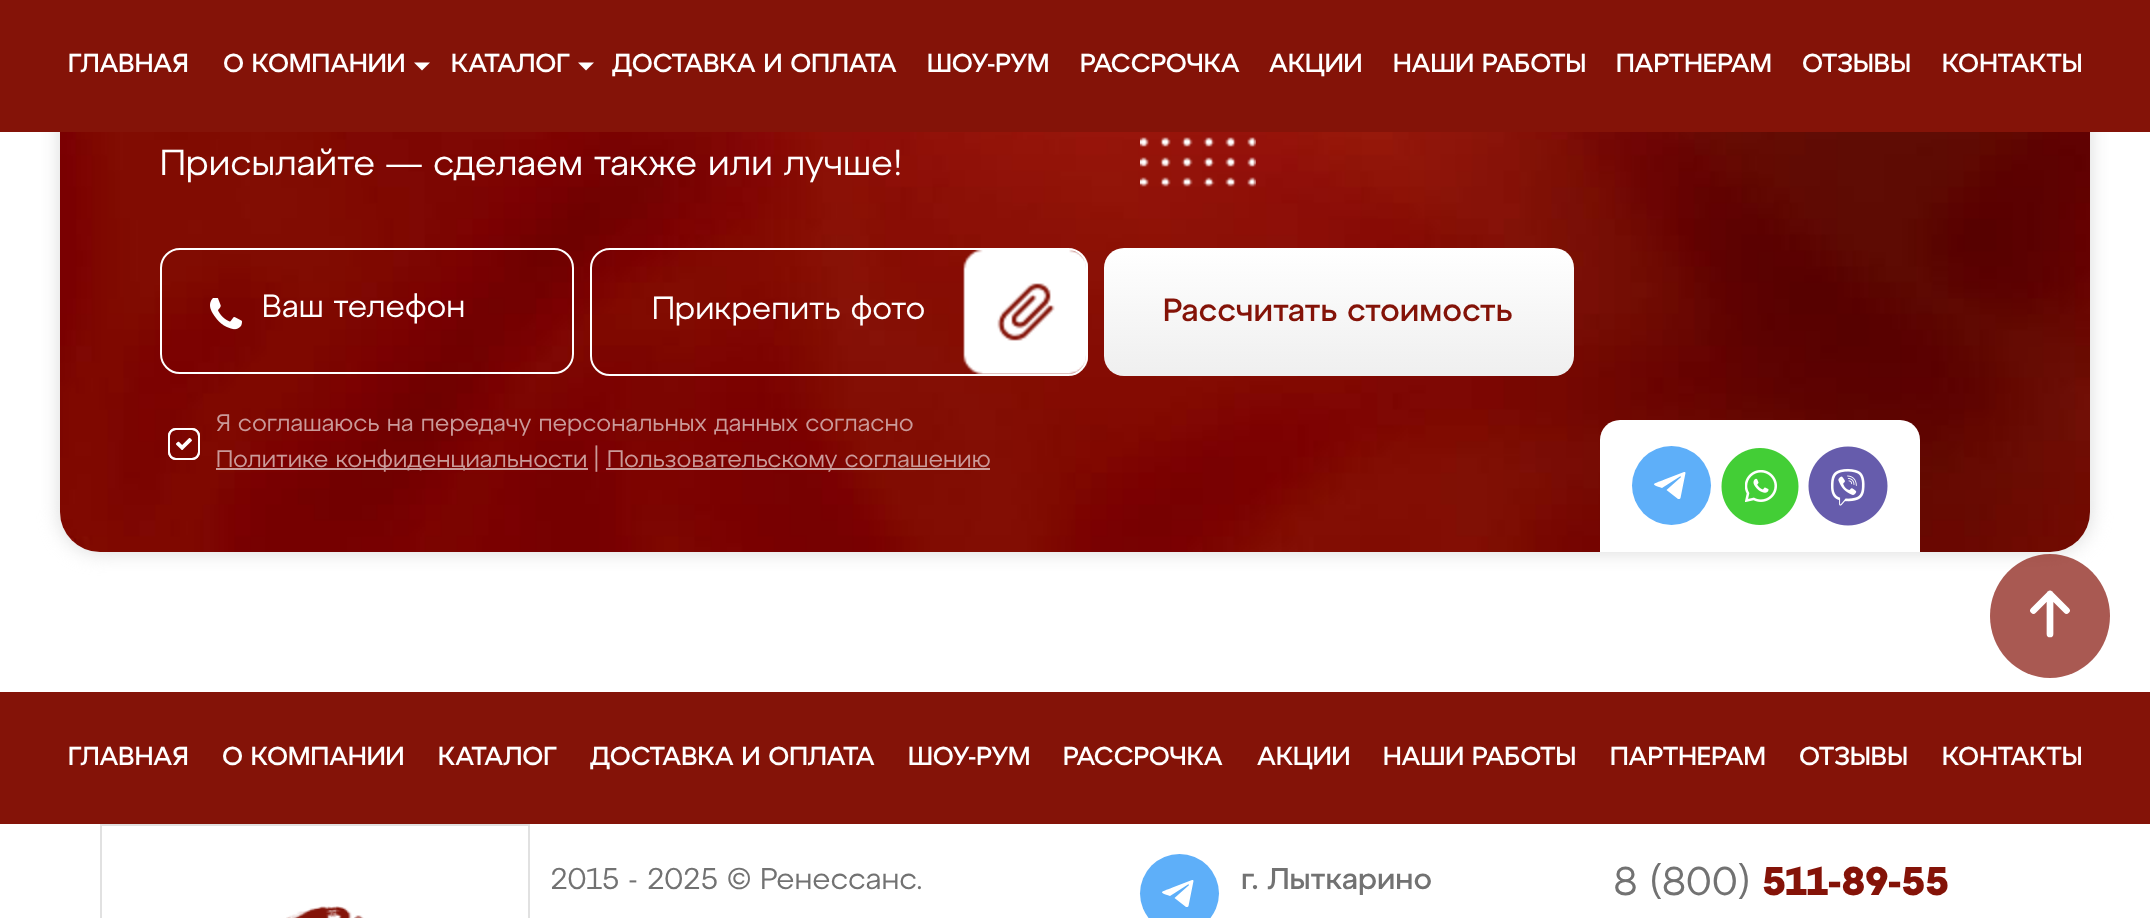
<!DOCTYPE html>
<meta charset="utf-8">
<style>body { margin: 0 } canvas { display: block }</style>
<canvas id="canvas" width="2150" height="918"></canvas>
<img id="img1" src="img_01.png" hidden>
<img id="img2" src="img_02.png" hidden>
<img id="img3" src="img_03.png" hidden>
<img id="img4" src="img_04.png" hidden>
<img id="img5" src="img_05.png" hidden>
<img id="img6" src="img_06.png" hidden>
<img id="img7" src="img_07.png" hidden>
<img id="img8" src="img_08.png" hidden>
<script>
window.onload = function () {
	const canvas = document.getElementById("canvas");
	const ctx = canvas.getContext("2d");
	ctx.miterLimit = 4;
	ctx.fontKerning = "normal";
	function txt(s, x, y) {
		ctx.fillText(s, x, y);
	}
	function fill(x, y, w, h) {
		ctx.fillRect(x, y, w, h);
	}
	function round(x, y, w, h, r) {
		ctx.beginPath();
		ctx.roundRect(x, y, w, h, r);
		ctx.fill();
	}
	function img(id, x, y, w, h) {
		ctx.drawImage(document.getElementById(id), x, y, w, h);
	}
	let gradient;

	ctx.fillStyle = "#FFFFFF";
	fill(0, 0, 2150, 918);
	ctx.fillStyle = "#D9D9D9";
	ctx.filter = "blur(10px)";
	ctx.beginPath();
	ctx.roundRect(60, -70, 2030, 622, 40);
	ctx.fill();
	ctx.filter = "none";
	ctx.fillStyle = "#841308";
	fill(0, 0, 2150, 132);
	ctx.fillStyle = "#FFFFFF";
	ctx.beginPath();
	ctx.moveTo(422, 70.5);
	ctx.lineTo(414, 62.5);
	ctx.lineTo(430, 62.5);
	ctx.closePath();
	ctx.fill();
	ctx.beginPath();
	ctx.moveTo(586, 70.5);
	ctx.lineTo(578, 62.5);
	ctx.lineTo(594, 62.5);
	ctx.closePath();
	ctx.fill();
	img("img1", 60, 132, 2030, 420);
	img("img2", 1140, 137, 116, 50);
	ctx.beginPath();
	ctx.roundRect(161, 249, 412, 124, 19);
	ctx.strokeStyle = "#FFFFFF";
	ctx.lineWidth = 2;
	ctx.stroke();
	img("img3", 210, 298, 32, 32);
	ctx.beginPath();
	ctx.roundRect(591, 249, 496, 126, 19);
	ctx.stroke();
	img("img4", 963, 250, 125, 125);
	gradient = ctx.createLinearGradient(1339, 248, 1339, 376);
	gradient.addColorStop(0, "#FFFFFF");
	gradient.addColorStop(1, "#EFEFEF");
	ctx.fillStyle = gradient;
	round(1104, 248, 470, 128, 20);
	ctx.beginPath();
	ctx.roundRect(169, 429, 30, 30, 7);
	ctx.stroke();
	img("img5", 168, 428, 32, 32);
	ctx.fillStyle = "rgba(255, 255, 255, 0.6)";
	fill(216, 468, 372, 2);
	fill(606, 468, 384, 2);
	ctx.fillStyle = "#FFFFFF";
	ctx.beginPath();
	ctx.roundRect(1600, 420, 320, 132, [20, 20, 0, 0]);
	ctx.fill();
	ctx.fillStyle = "#5EAFF9";
	ctx.beginPath();
	ctx.arc(1671.5, 485.5, 39.5, 0, Math.PI * 2);
	ctx.fill();
	img("img6", 1721, 448, 78, 77);
	img("img7", 1808, 446, 80, 80);
	ctx.fillStyle = "#FFFFFF";
	ctx.beginPath();
	ctx.moveTo(1685.5, 473);
	ctx.lineTo(1680.5, 498);
	ctx.bezierCurveTo(1680.5, 498, 1680, 499.5, 1678, 499);
	ctx.lineTo(1666.5, 490);
	ctx.lineTo(1680, 478);
	ctx.bezierCurveTo(1680, 478, 1681.5, 477, 1681, 476.5);
	ctx.lineTo(1680, 476.5);
	ctx.lineTo(1662, 488);
	ctx.bezierCurveTo(1650.5, 484, 1651.5, 484.5, 1664.5, 479.5);
	ctx.lineTo(1684, 472);
	ctx.bezierCurveTo(1685, 472, 1685.5, 472, 1685.5, 473);
	ctx.closePath();
	ctx.fill();
	ctx.fillStyle = "rgba(132, 19, 8, 0.7)";
	ctx.beginPath();
	ctx.ellipse(2050, 616, 60, 62, 0, 0, Math.PI * 2);
	ctx.fill();
	ctx.beginPath();
	ctx.moveTo(2050, 594);
	ctx.lineTo(2050, 634);
	ctx.moveTo(2050, 594);
	ctx.lineTo(2033.5, 610.5);
	ctx.moveTo(2050, 594);
	ctx.lineTo(2066.5, 610.5);
	ctx.lineWidth = 6.7;
	ctx.lineCap = "round";
	ctx.lineJoin = "round";
	ctx.stroke();
	ctx.fillStyle = "#841308";
	fill(0, 692, 2150, 132);
	ctx.strokeStyle = "#E1E1E1";
	ctx.lineWidth = 2;
	ctx.lineJoin = "miter";
	ctx.strokeRect(101, 825, 428, 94);
	img("img8", 286, 906, 78, 12);
	ctx.fillStyle = "#5EAFF9";
	ctx.beginPath();
	ctx.arc(1179.5, 893.5, 39.5, 0, Math.PI * 2);
	ctx.fill();
	ctx.fillStyle = "#FFFFFF";
	ctx.beginPath();
	ctx.moveTo(1193.5, 881);
	ctx.lineTo(1188.5, 906);
	ctx.bezierCurveTo(1188.5, 906, 1188, 907.5, 1186, 907);
	ctx.lineTo(1174.5, 898);
	ctx.lineTo(1188, 886);
	ctx.bezierCurveTo(1188, 886, 1189.5, 885, 1189, 884.5);
	ctx.lineTo(1188, 884.5);
	ctx.lineTo(1170, 896);
	ctx.bezierCurveTo(1158.5, 892, 1159.5, 892.5, 1172.5, 887.5);
	ctx.lineTo(1192, 880);
	ctx.bezierCurveTo(1193, 880, 1193.5, 880, 1193.5, 881);
	ctx.closePath();
	ctx.fill();
	ctx.font = "500 26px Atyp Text";
	txt("ГЛАВНАЯ", 68, 72);
	txt("О КОМПАНИИ", 223, 72);
	txt("КАТАЛОГ", 451, 72);
	txt("ДОСТАВКА И ОПЛАТА", 612, 72);
	txt("ШОУ-РУМ", 927, 72);
	txt("РАССРОЧКА", 1080, 72);
	txt("АКЦИИ", 1269, 72);
	txt("НАШИ РАБОТЫ", 1393, 72);
	txt("ПАРТНЕРАМ", 1616, 72);
	txt("ОТЗЫВЫ", 1802, 72);
	txt("КОНТАКТЫ", 1942, 72);
	ctx.font = "36px Atyp Text";
	txt("Присылайте — сделаем также или лучше!", 160, 175);
	ctx.font = "32px Atyp Text";
	txt("Ваш телефон", 262, 317);
	txt("Прикрепить фото", 652, 319);
	ctx.font = "500 32px Atyp Text";
	ctx.fillStyle = "#841308";
	txt("Рассчитать стоимость", 1163, 321);
	ctx.font = "24px Atyp Text";
	ctx.fillStyle = "#CA9A99";
	txt("Я соглашаюсь на передачу персональных данных согласно", 216, 431);
	txt("Политике конфиденциальности", 216, 467);
	txt("|", 594, 467);
	txt("Пользовательскому соглашению", 607, 467);
	ctx.font = "500 26px Atyp Text";
	ctx.fillStyle = "#FFFFFF";
	txt("ГЛАВНАЯ", 68, 765);
	txt("О КОМПАНИИ", 222, 765);
	txt("КАТАЛОГ", 438, 765);
	txt("ДОСТАВКА И ОПЛАТА", 590, 765);
	txt("ШОУ-РУМ", 908, 765);
	txt("РАССРОЧКА", 1063, 765);
	txt("АКЦИИ", 1257, 765);
	txt("НАШИ РАБОТЫ", 1383, 765);
	txt("ПАРТНЕРАМ", 1610, 765);
	txt("ОТЗЫВЫ", 1799, 765);
	txt("КОНТАКТЫ", 1942, 765);
	ctx.font = "30px Atyp Text";
	ctx.fillStyle = "#727272";
	txt("2015 - 2025 © Ренессанс.", 550, 889);
	ctx.font = "500 30px Atyp Text";
	txt("г. Лыткарино", 1241, 889);
	ctx.font = "40px Atyp Text";
	txt("8 (800)", 1613, 895);
	ctx.font = "bold 40px Atyp Text";
	ctx.fillStyle = "#841308";
	txt("511-89-55", 1762, 895);
};
</script>
